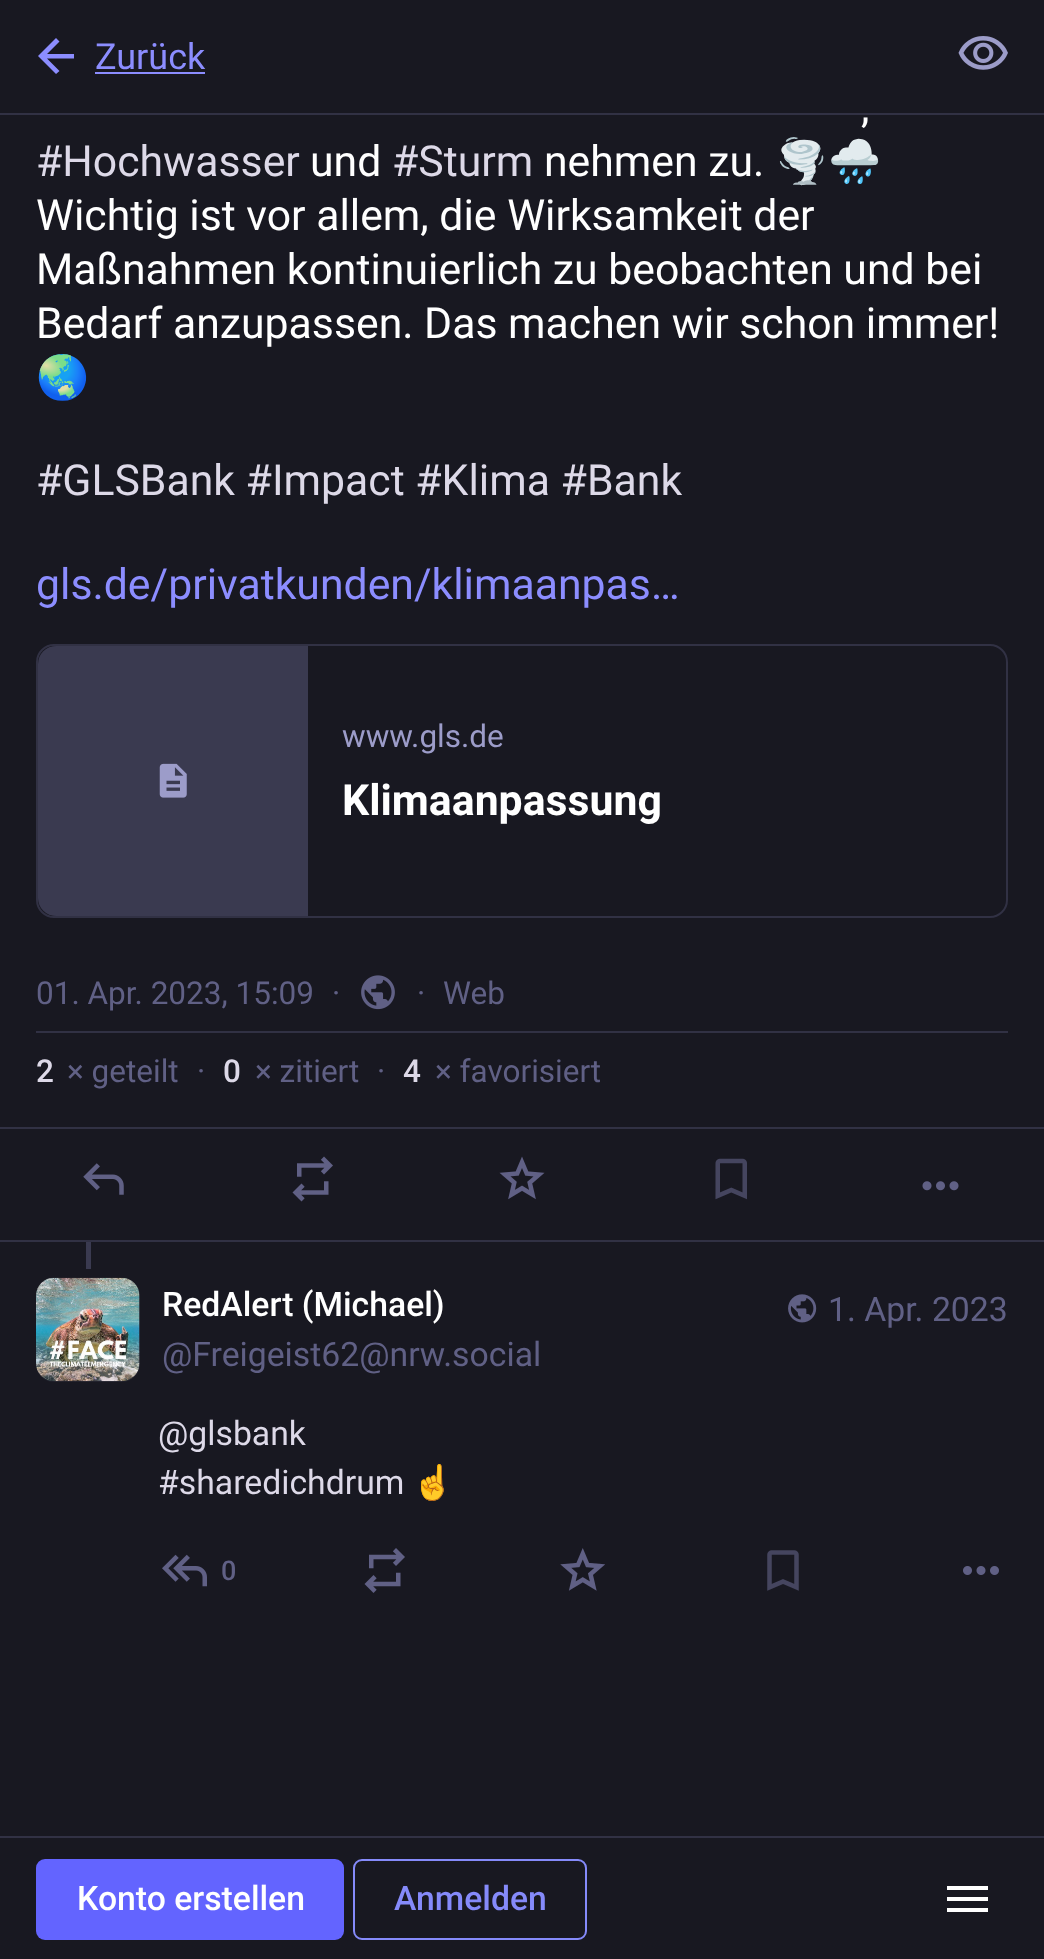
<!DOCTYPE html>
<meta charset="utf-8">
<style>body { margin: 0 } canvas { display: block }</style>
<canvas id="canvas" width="1044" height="1959"></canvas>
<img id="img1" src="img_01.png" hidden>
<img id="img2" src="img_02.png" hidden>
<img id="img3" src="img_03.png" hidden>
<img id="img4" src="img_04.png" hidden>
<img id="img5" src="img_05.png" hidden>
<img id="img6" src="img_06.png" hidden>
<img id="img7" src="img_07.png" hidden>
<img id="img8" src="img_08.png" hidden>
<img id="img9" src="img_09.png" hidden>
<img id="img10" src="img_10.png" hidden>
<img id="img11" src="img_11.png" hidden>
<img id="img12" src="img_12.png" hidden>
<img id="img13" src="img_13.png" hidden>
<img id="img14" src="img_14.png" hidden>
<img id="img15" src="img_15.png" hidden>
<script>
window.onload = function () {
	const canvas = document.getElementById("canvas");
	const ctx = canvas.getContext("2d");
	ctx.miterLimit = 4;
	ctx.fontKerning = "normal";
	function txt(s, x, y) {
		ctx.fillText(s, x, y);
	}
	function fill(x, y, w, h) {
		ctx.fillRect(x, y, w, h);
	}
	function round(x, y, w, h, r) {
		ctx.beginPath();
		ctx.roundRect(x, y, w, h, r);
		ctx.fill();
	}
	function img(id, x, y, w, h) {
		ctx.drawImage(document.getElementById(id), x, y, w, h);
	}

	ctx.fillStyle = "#181821";
	fill(0, 0, 1044, 1959);
	ctx.fillStyle = "#313144";
	fill(0, 113, 1044, 2);
	ctx.fillStyle = "#8C8DFF";
	ctx.beginPath();
	ctx.moveTo(47, 58.5);
	ctx.lineTo(59.5, 71);
	ctx.lineTo(56, 74);
	ctx.lineTo(38, 56);
	ctx.lineTo(56, 38);
	ctx.lineTo(59.5, 41.5);
	ctx.lineTo(47, 54);
	ctx.lineTo(74, 54);
	ctx.lineTo(74, 58.5);
	ctx.closePath();
	ctx.fill();
	fill(95, 72, 110, 2);
	img("img1", 958, 36, 50, 34);
	ctx.beginPath();
	ctx.roundRect(37, 645, 970, 272, 17);
	ctx.strokeStyle = "#313144";
	ctx.lineWidth = 2;
	ctx.stroke();
	ctx.save();
	ctx.beginPath();
	ctx.roundRect(38, 646, 968, 270, 16);
	ctx.clip();
	ctx.fillStyle = "#3A3A50";
	ctx.beginPath();
	ctx.roundRect(38, 646, 270, 270, [18, 0, 0, 18]);
	ctx.fill();
	ctx.restore();
	img("img2", 159, 763, 28, 35);
	ctx.fillStyle = "#313144";
	fill(36, 1031, 972, 2);
	img("img3", 361, 975, 34, 35);
	fill(0, 1127, 1044, 2);
	fill(0, 1240, 1044, 2);
	img("img4", 83, 1163, 41, 32);
	img("img5", 292, 1156, 41, 46);
	img("img6", 499, 1156, 46, 44);
	img("img7", 715, 1158, 32, 42);
	img("img8", 922, 1181, 37, 10);
	ctx.fillStyle = "#3A3A50";
	fill(86, 1242, 5, 27);
	ctx.fillStyle = "#20202C";
	round(36, 1278, 104, 104, 18);
	img("img9", 36, 1277, 104, 105);
	img("img10", 788, 1294, 29, 29);
	img("img11", 162, 1554, 45, 33);
	img("img12", 364, 1548, 41, 45);
	img("img13", 560, 1548, 45, 43);
	img("img14", 767, 1550, 32, 41);
	img("img15", 963, 1566, 36, 9);
	ctx.fillStyle = "#313144";
	fill(0, 1836, 1044, 2);
	ctx.fillStyle = "#6364FF";
	round(36, 1859, 308, 81, 9);
	ctx.beginPath();
	ctx.roundRect(354, 1860, 232, 79, 8);
	ctx.strokeStyle = "#858AFA";
	ctx.stroke();
	ctx.fillStyle = "#FFFFFF";
	ctx.beginPath();
	ctx.moveTo(947, 1912);
	ctx.lineTo(947, 1908);
	ctx.lineTo(988, 1908);
	ctx.lineTo(988, 1912);
	ctx.closePath();
	ctx.moveTo(947, 1901);
	ctx.lineTo(947, 1897);
	ctx.lineTo(988, 1897);
	ctx.lineTo(988, 1901);
	ctx.closePath();
	ctx.moveTo(947, 1890);
	ctx.lineTo(947, 1886);
	ctx.lineTo(988, 1886);
	ctx.lineTo(988, 1890);
	ctx.closePath();
	ctx.fill();
	ctx.font = "36px Roboto";
	ctx.fillStyle = "#8C8DFF";
	txt("Zurück", 95, 69);
	ctx.font = "42.75px Roboto";
	ctx.fillStyle = "#FFFFFF";
	txt(",", 861, 122);
	ctx.fillStyle = "#DDD9E8";
	txt("#Hochwasser", 36, 176);
	ctx.fillStyle = "#FFFFFF";
	txt("und", 310, 176);
	ctx.fillStyle = "#DDD9E8";
	txt("#Sturm", 392, 176);
	ctx.fillStyle = "#FFFFFF";
	txt("nehmen zu.", 544, 176);
	ctx.font = "42.75px Noto Color Emoji";
	txt("🌪️🌧️", 775, 176);
	ctx.font = "42.75px Roboto";
	txt("Wichtig ist vor allem, die Wirksamkeit der", 36, 230);
	txt("Maßnahmen kontinuierlich zu beobachten und bei", 36, 284);
	txt("Bedarf anzupassen. Das machen wir schon immer!", 36, 338);
	ctx.font = "42.75px Noto Color Emoji";
	txt("🌏", 36, 392);
	ctx.font = "42.75px Roboto";
	ctx.fillStyle = "#DDD9E8";
	txt("#GLSBank #Impact #Klima #Bank", 36, 495);
	ctx.fillStyle = "#8C8DFF";
	txt("gls.de/privatkunden/klimaanpas…", 36, 599);
	ctx.font = "31.5px Roboto";
	ctx.fillStyle = "#9C9CC9";
	txt("www.gls.de", 342, 747);
	ctx.font = "bold 42.75px Roboto";
	ctx.fillStyle = "#FFFFFF";
	txt("Klimaanpassung", 342, 815);
	ctx.font = "31.5px Roboto";
	ctx.fillStyle = "#606085";
	txt("01. Apr. 2023, 15:09", 36, 1004);
	txt("·", 332, 1004);
	txt("·", 417, 1004);
	txt("Web", 443, 1004);
	ctx.font = "500 31.5px Roboto";
	ctx.fillStyle = "#DDD9E8";
	txt("2", 36, 1082);
	ctx.font = "31.5px Roboto";
	ctx.fillStyle = "#606085";
	txt("× geteilt", 67, 1082);
	txt("·", 197, 1082);
	ctx.font = "500 31.5px Roboto";
	ctx.fillStyle = "#DDD9E8";
	txt("0", 223, 1082);
	ctx.font = "31.5px Roboto";
	ctx.fillStyle = "#606085";
	txt("× zitiert", 255, 1082);
	txt("·", 377, 1082);
	ctx.font = "500 31.5px Roboto";
	ctx.fillStyle = "#DDD9E8";
	txt("4", 403, 1082);
	ctx.font = "31.5px Roboto";
	ctx.fillStyle = "#606085";
	txt("× favorisiert", 435, 1082);
	ctx.font = "500 33.75px Roboto";
	ctx.fillStyle = "#FFFFFF";
	txt("RedAlert (Michael)", 162, 1316);
	ctx.font = "33.75px Roboto";
	ctx.fillStyle = "#606085";
	txt("@Freigeist62@nrw.social", 162, 1366);
	txt("1. Apr. 2023", 828, 1321);
	ctx.fillStyle = "#DDD9E8";
	txt("@glsbank", 158, 1445);
	txt("#sharedichdrum", 158, 1494);
	ctx.font = "33.75px Noto Color Emoji";
	ctx.fillStyle = "#FFFFFF";
	txt("☝️", 412, 1494);
	ctx.font = "500 27px Roboto";
	ctx.fillStyle = "#606085";
	txt("0", 221, 1580);
	ctx.font = "500 33.75px Roboto";
	ctx.fillStyle = "#FFFFFF";
	txt("Konto erstellen", 77, 1910);
	ctx.fillStyle = "#858AFA";
	txt("Anmelden", 394, 1910);
};
</script>
